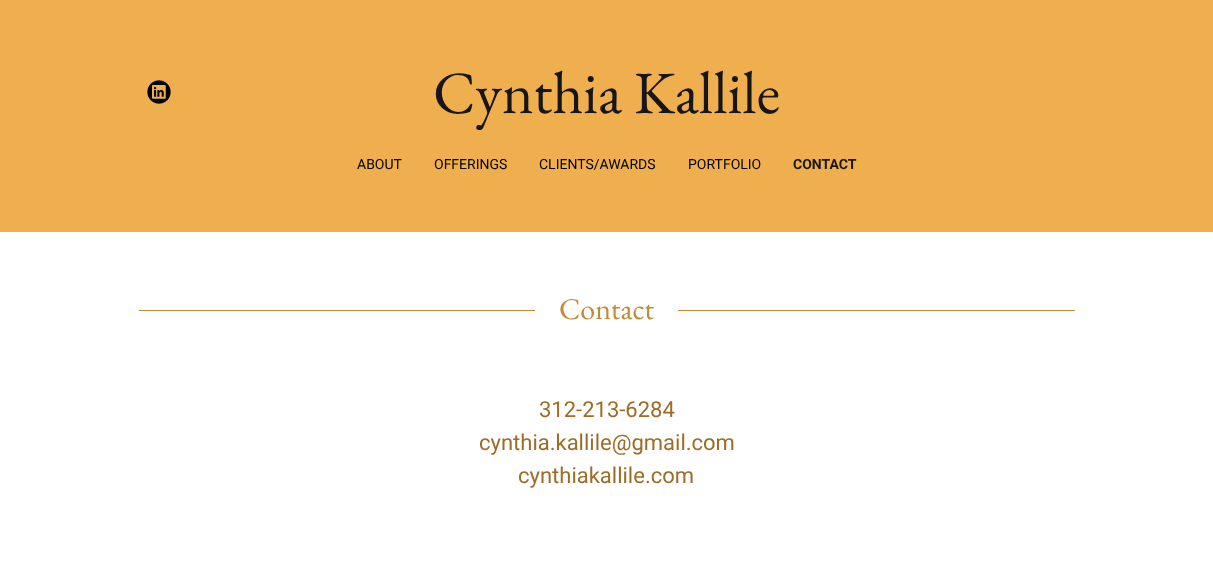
<!DOCTYPE html>
<meta charset="utf-8">
<style>body { margin: 0 } canvas { display: block }</style>
<canvas id="canvas" width="1213" height="568"></canvas>
<img id="img1" src="img_01.png" hidden>
<script>
window.onload = function () {
	const canvas = document.getElementById("canvas");
	const ctx = canvas.getContext("2d");
	ctx.miterLimit = 4;
	ctx.fontKerning = "normal";
	function txt(s, x, y) {
		ctx.fillText(s, x, y);
	}
	function fill(x, y, w, h) {
		ctx.fillRect(x, y, w, h);
	}
	function img(id, x, y, w, h) {
		ctx.drawImage(document.getElementById(id), x, y, w, h);
	}

	ctx.fillStyle = "#F0AF4F";
	fill(0, 0, 1213, 568);
	img("img1", 147, 80, 24, 24);
	ctx.fillStyle = "#FFFFFF";
	fill(0, 232, 1213, 336);
	ctx.fillStyle = "#C28936";
	fill(139, 310, 396, 1);
	fill(678, 310, 397, 1);
	ctx.font = "60px EB Garamond";
	ctx.fillStyle = "#161616";
	txt("Cynthia Kallile", 433, 113);
	ctx.font = "14px Roboto";
	ctx.fillStyle = "#000000";
	txt("ABOUT", 357, 169);
	txt("OFFERINGS", 434, 169);
	txt("CLIENTS/AWARDS", 539, 169);
	txt("PORTFOLIO", 688, 169);
	ctx.font = "bold 14px Roboto";
	ctx.fillStyle = "#161616";
	txt("CONTACT", 793, 169);
	ctx.font = "30px EB Garamond";
	ctx.fillStyle = "#C28936";
	txt("Contact", 559, 319);
	ctx.font = "22px Roboto";
	ctx.fillStyle = "#9C6D28";
	txt("312-213-6284", 539, 417);
	txt("cynthia.kallile@gmail.com", 479, 450);
	txt("cynthiakallile.com", 518, 483);
};
</script>
